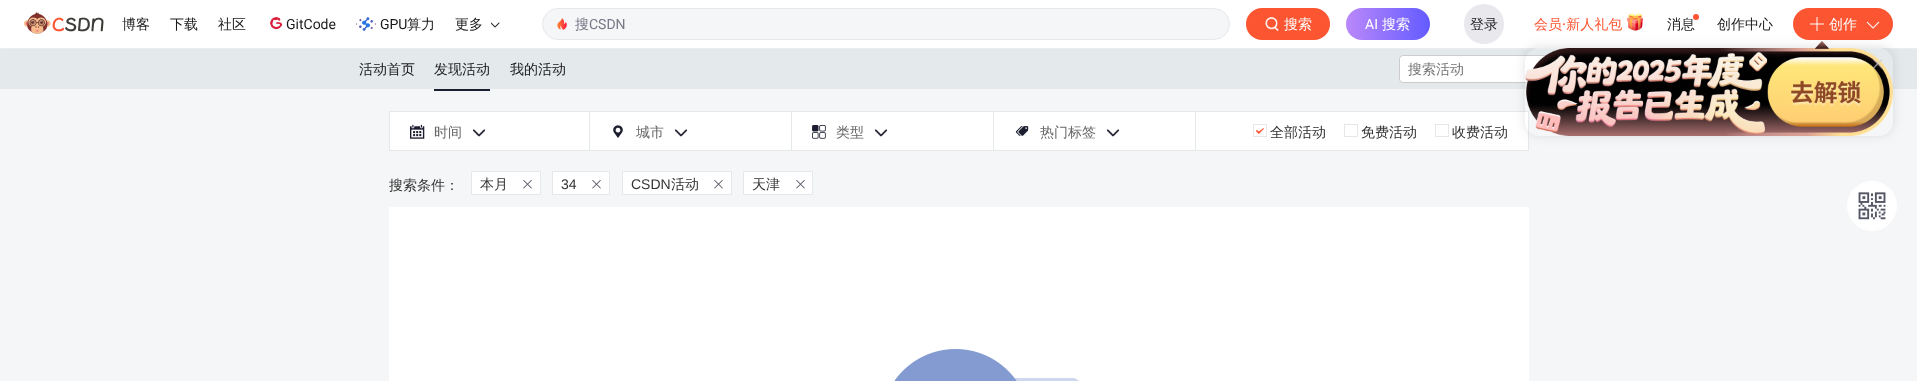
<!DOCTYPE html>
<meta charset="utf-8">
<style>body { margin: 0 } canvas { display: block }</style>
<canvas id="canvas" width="1917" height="381"></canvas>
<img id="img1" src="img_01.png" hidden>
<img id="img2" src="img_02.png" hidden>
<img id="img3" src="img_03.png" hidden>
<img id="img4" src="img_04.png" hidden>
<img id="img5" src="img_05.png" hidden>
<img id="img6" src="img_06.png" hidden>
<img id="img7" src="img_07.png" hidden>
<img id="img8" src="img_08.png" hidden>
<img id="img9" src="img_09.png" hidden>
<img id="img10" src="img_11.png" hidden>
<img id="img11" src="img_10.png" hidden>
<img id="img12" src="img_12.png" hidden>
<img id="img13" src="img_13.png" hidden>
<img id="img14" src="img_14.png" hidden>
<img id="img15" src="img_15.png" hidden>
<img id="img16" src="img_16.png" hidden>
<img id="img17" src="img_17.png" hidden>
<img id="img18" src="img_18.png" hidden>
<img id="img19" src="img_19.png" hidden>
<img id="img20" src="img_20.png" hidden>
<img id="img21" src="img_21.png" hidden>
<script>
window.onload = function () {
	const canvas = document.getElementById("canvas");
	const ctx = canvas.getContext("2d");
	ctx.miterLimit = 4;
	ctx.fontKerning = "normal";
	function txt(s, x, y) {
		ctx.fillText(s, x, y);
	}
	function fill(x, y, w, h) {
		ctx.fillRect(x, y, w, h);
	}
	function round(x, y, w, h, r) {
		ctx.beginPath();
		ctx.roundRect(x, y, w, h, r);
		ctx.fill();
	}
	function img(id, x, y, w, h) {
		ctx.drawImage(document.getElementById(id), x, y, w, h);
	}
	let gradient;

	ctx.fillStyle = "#F5F6F7";
	fill(0, 0, 1917, 381);
	ctx.fillStyle = "rgba(0, 0, 0, 0.05)";
	ctx.filter = "blur(2px)";
	ctx.beginPath();
	ctx.rect(0, 2, 1917, 48);
	ctx.fill();
	ctx.filter = "none";
	ctx.fillStyle = "#FFFFFF";
	fill(0, 0, 1917, 48);
	img("img1", 24, 12, 80, 22);
	img("img2", 270, 17, 13, 13);
	img("img3", 356, 17, 20, 14);
	img("img4", 491, 22, 9, 6);
	ctx.fillStyle = "#F5F6F7";
	ctx.beginPath();
	ctx.roundRect(542.5, 8.5, 687, 31, 15.5);
	ctx.fill();
	ctx.strokeStyle = "#E8E8ED";
	ctx.stroke();
	img("img5", 557, 18, 10, 12);
	ctx.fillStyle = "#FC5531";
	round(1246, 8, 84, 32, 16);
	img("img6", 1265, 17, 14, 15);
	gradient = ctx.createLinearGradient(1346, 24, 1430, 24);
	gradient.addColorStop(0, "#BA88FA");
	gradient.addColorStop(1, "#635BFF");
	ctx.fillStyle = gradient;
	round(1346, 8, 84, 32, 16);
	ctx.fillStyle = "#E8E8ED";
	ctx.beginPath();
	ctx.arc(1484, 24, 20, 0, Math.PI * 2);
	ctx.fill();
	img("img7", 1627, 13, 16, 18);
	ctx.fillStyle = "#FC5531";
	round(1793, 8, 100, 32, 16);
	img("img8", 1810, 17, 14, 14);
	img("img9", 1866, 21, 14, 8);
	ctx.fillStyle = "#E4E9EC";
	fill(0, 49, 1917, 40);
	ctx.fillStyle = "#FFFFFF";
	ctx.beginPath();
	ctx.roundRect(1399.5, 55.5, 159, 27, 3.5);
	ctx.fill();
	ctx.strokeStyle = "#CCCCCC";
	ctx.stroke();
	fill(390, 112, 1138, 38);
	ctx.fillStyle = "#E4E8E9";
	fill(590, 111, 939, 1);
	fill(1528, 111, 1, 40);
	fill(1196, 150, 333, 1);
	ctx.save();
	ctx.beginPath();
	ctx.moveTo(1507, 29);
	ctx.lineTo(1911, 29);
	ctx.lineTo(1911, 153);
	ctx.lineTo(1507, 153);
	ctx.closePath();
	ctx.moveTo(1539, 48);
	ctx.lineTo(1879, 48);
	ctx.bezierCurveTo(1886.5, 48, 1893, 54.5, 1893, 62);
	ctx.lineTo(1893, 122);
	ctx.bezierCurveTo(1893, 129.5, 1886.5, 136, 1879, 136);
	ctx.lineTo(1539, 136);
	ctx.bezierCurveTo(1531.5, 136, 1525, 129.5, 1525, 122);
	ctx.lineTo(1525, 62);
	ctx.bezierCurveTo(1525, 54.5, 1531.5, 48, 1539, 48);
	ctx.closePath();
	ctx.clip("evenodd");
	ctx.fillStyle = "rgba(103, 103, 103, 0.19)";
	ctx.filter = "blur(5.5px)";
	ctx.beginPath();
	ctx.roundRect(1525, 47, 368, 88, 14);
	ctx.fill();
	ctx.filter = "none";
	ctx.restore();
	img("img10", 1525, 48, 368, 88);
	img("img11", 1815, 41, 14, 8);
	img("img12", 1872, 59, 11, 10);
	ctx.fillStyle = "#1C1D30";
	fill(434, 89, 56, 2);
	ctx.strokeStyle = "#E4E8E9";
	ctx.strokeRect(389.5, 111.5, 200, 39);
	img("img13", 410, 124, 15, 15);
	img("img14", 472, 129, 14, 8);
	ctx.fillStyle = "#E4E8E9";
	fill(791, 111, 1, 40);
	fill(590, 150, 202, 1);
	img("img15", 613, 125, 10, 13);
	img("img14", 674, 129, 14, 8);
	fill(993, 111, 1, 40);
	fill(792, 150, 202, 1);
	img("img16", 812, 125, 14, 14);
	img("img14", 874, 129, 14, 8);
	fill(1195, 111, 1, 40);
	fill(994, 150, 202, 1);
	img("img17", 1015, 126, 14, 10);
	img("img14", 1106, 129, 14, 8);
	img("img18", 1256, 128, 8, 6);
	ctx.strokeRect(1253.5, 124.5, 13, 12);
	ctx.strokeRect(1344.5, 124.5, 13, 12);
	ctx.strokeRect(1435.5, 124.5, 13, 12);
	ctx.fillStyle = "#FFFFFF";
	ctx.beginPath();
	ctx.rect(471.5, 171.5, 69, 23);
	ctx.fill();
	ctx.stroke();
	img("img19", 523, 180, 9, 9);
	ctx.beginPath();
	ctx.rect(552.5, 171.5, 57, 23);
	ctx.fill();
	ctx.stroke();
	img("img19", 592, 180, 9, 9);
	ctx.beginPath();
	ctx.rect(622.5, 171.5, 109, 23);
	ctx.fill();
	ctx.stroke();
	img("img19", 714, 180, 9, 9);
	ctx.beginPath();
	ctx.rect(743.5, 171.5, 69, 23);
	ctx.fill();
	ctx.stroke();
	img("img19", 796, 180, 9, 9);
	fill(389, 207, 1140, 174);
	img("img20", 894, 349, 185, 32);
	ctx.beginPath();
	ctx.arc(1872, 206, 25, 0, Math.PI * 2);
	ctx.fill();
	img("img21", 1858, 192, 28, 28);
	ctx.font = "500 14px WenQuanYi Zen Hei";
	ctx.fillStyle = "#1A1A1A";
	txt("博客", 122, 29);
	txt("下载", 170, 29);
	txt("社区", 218, 29);
	ctx.font = "14px Roboto";
	txt("GitCode", 286, 29);
	txt("GPU", 380, 29);
	ctx.font = "500 14px WenQuanYi Zen Hei";
	txt("算力", 407, 29);
	txt("更多", 455, 29);
	ctx.fillStyle = "#777888";
	txt("搜", 575, 29);
	ctx.font = "14px Roboto";
	txt("CSDN", 589, 29);
	ctx.font = "500 14px WenQuanYi Zen Hei";
	ctx.fillStyle = "#FFFFFF";
	txt("搜索", 1284, 29);
	ctx.font = "14px Roboto";
	txt("AI", 1365, 29);
	ctx.font = "500 14px WenQuanYi Zen Hei";
	txt("搜索", 1382, 29);
	ctx.fillStyle = "#222226";
	txt("登录", 1470, 29);
	ctx.fillStyle = "#FC5531";
	txt("会员 新人礼包", 1534, 29);
	ctx.font = "500 14px Roboto";
	txt("·", 1562, 29);
	ctx.font = "500 14px WenQuanYi Zen Hei";
	ctx.fillStyle = "#1A1A1A";
	txt("消息", 1667, 29);
	ctx.fillStyle = "#FC5531";
	ctx.beginPath();
	ctx.arc(1696, 17, 3, 0, Math.PI * 2);
	ctx.fill();
	ctx.fillStyle = "#1A1A1A";
	txt("创作中心", 1717, 29);
	ctx.fillStyle = "#FFFFFF";
	txt("创作", 1829, 29);
	ctx.fillStyle = "#1A1A1A";
	txt("活动首页", 359, 74);
	txt("发现活动", 434, 74);
	txt("我的活动", 510, 74);
	ctx.fillStyle = "#757575";
	txt("搜索活动", 1408, 74);
	ctx.fillStyle = "#666666";
	txt("时间", 434, 137);
	txt("城市", 636, 137);
	txt("类型", 836, 137);
	txt("热门标签", 1040, 137);
	ctx.fillStyle = "#333333";
	txt("全部活动", 1270, 137);
	txt("免费活动", 1361, 137);
	txt("收费活动", 1452, 137);
	txt("搜索条件：", 389, 190);
	txt("本月", 480, 189);
	ctx.font = "14px Liberation Sans";
	txt("34", 561, 189);
	txt("CSDN", 631, 189);
	ctx.font = "500 14px WenQuanYi Zen Hei";
	txt("活动", 671, 189);
	txt("天津", 752, 189);
};
</script>
